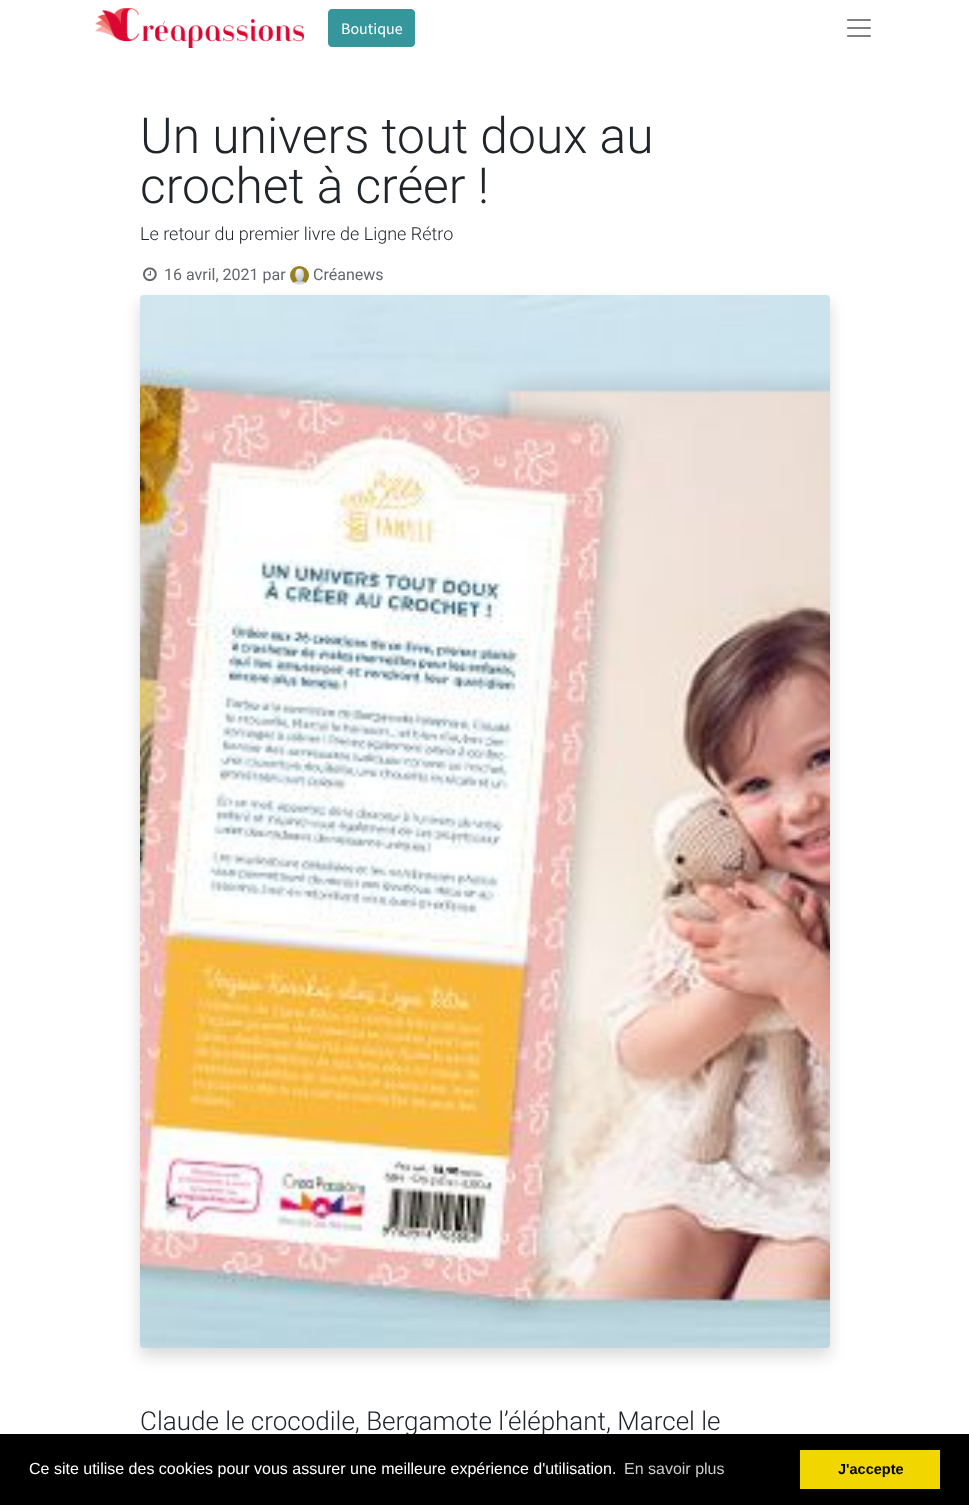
<!DOCTYPE html>
<meta charset="utf-8">
<style>body { margin: 0 } canvas { display: block }</style>
<canvas id="canvas" width="969" height="1505"></canvas>
<img id="img1" src="img_01.png" hidden>
<img id="img2" src="img_02.png" hidden>
<img id="img3" src="img_03.png" hidden>
<img id="img4" src="img_04.png" hidden>
<img id="img5" src="img_05.png" hidden>
<script>
window.onload = function () {
	const canvas = document.getElementById("canvas");
	const ctx = canvas.getContext("2d");
	ctx.miterLimit = 4;
	ctx.fontKerning = "normal";
	function txt(s, x, y) {
		ctx.fillText(s, x, y);
	}
	function fill(x, y, w, h) {
		ctx.fillRect(x, y, w, h);
	}
	function img(id, x, y, w, h) {
		ctx.drawImage(document.getElementById(id), x, y, w, h);
	}

	ctx.fillStyle = "#FFFFFF";
	fill(0, 0, 969, 1505);
	img("img1", 95, 8, 209, 40);
	ctx.fillStyle = "#35979C";
	ctx.beginPath();
	ctx.roundRect(328.5, 9.5, 86, 37, 3.5);
	ctx.fill();
	ctx.strokeStyle = "#35979C";
	ctx.stroke();
	img("img2", 847, 19, 24, 18);
	img("img3", 143, 267, 14, 15);
	img("img4", 290, 266, 19, 19);
	ctx.fillStyle = "rgba(0, 0, 0, 0.15)";
	ctx.filter = "blur(8px)";
	ctx.beginPath();
	ctx.roundRect(140, 303, 690, 1053, 4);
	ctx.fill();
	ctx.filter = "none";
	img("img5", 140, 295, 690, 1053);
	ctx.font = "16px Source Sans Pro";
	ctx.fillStyle = "#FFFFFF";
	txt("Boutique", 341, 34);
	ctx.font = "300 49.75px Roboto";
	ctx.fillStyle = "#212529";
	txt("Un univers tout doux au", 140, 153);
	txt("crochet à créer !", 140, 203);
	ctx.font = "300 18px Roboto";
	txt("Le retour du premier livre de Ligne Rétro", 140, 240);
	ctx.font = "16px Roboto";
	ctx.fillStyle = "#646669";
	txt("16 avril, 2021 par", 164, 280);
	txt("Créanews", 313, 280);
	ctx.font = "300 26px Roboto";
	ctx.fillStyle = "#212529";
	txt("Claude le crocodile, Bergamote l’éléphant, Marcel le", 140, 1430);
	ctx.fillStyle = "#000000";
	fill(0, 1434, 969, 71);
	ctx.font = "16px Liberation Sans";
	ctx.fillStyle = "#FFFFFF";
	txt("Ce site utilise des cookies pour vous assurer une meilleure expérience d'utilisation.", 29, 1474);
	ctx.fillStyle = "#CCCCCC";
	txt("En savoir plus", 624, 1474);
	ctx.fillStyle = "#F1D600";
	fill(800, 1450, 140, 39);
	ctx.font = "bold 14.5px Liberation Sans";
	ctx.fillStyle = "#000000";
	txt("J'accepte", 838, 1474);
};
</script>
